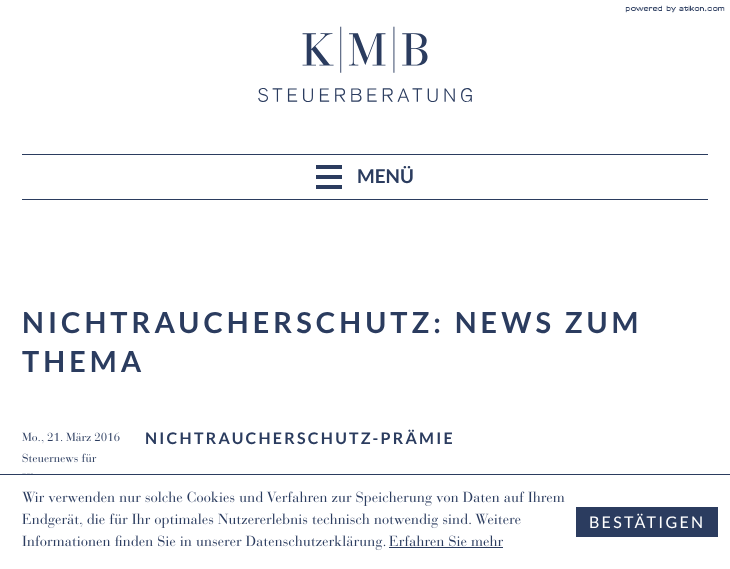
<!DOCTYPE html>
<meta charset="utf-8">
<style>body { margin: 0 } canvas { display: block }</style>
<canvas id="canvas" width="730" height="569"></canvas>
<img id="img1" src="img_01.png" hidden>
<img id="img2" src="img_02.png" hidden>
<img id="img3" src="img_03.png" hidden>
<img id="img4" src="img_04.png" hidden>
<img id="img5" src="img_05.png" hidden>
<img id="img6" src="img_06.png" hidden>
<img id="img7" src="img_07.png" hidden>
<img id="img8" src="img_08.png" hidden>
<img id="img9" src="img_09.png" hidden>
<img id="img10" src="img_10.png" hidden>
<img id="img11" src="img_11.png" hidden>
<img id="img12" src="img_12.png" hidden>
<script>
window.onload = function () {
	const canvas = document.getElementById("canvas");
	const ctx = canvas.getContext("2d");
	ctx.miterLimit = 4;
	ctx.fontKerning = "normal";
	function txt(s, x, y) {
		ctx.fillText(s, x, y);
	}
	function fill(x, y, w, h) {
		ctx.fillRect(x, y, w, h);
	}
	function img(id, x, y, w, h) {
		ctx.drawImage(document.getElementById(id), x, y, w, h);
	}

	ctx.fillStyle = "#FFFFFF";
	fill(0, 0, 730, 569);
	img("img1", 625, 5, 100, 8);
	img("img2", 258, 26, 214, 76);
	ctx.fillStyle = "#2B3C5F";
	fill(22, 154, 686, 1);
	fill(22, 199, 686, 1);
	fill(316, 165, 26, 4);
	fill(316, 175, 26, 4);
	fill(316, 185, 26, 4);
	img("img3", 22, 432, 18, 10);
	img("img4", 41, 432, 22, 12);
	img("img5", 66, 432, 25, 10);
	img("img6", 94, 432, 26, 10);
	img("img7", 22, 453, 75, 10);
	img("img8", 22, 473, 11, 1);
	fill(0, 474, 730, 1);
	img("img9", 22, 491, 543, 15);
	img("img10", 22, 513, 499, 16);
	img("img11", 22, 535, 364, 16);
	img("img12", 389, 535, 114, 12);
	fill(389, 547, 114, 1);
	fill(576, 507, 142, 30);
	ctx.font = "bold 19px Lato";
	txt("MENÜ", 357, 183);
	ctx.letterSpacing = "4.05px";
	ctx.font = "bold 28.9px Lato";
	txt("NICHTRAUCHERSCHUTZ: NEWS ZUM", 22, 333);
	txt("THEMA", 22, 372);
	ctx.letterSpacing = "2.25px";
	ctx.font = "bold 16px Lato";
	txt("NICHTRAUCHERSCHUTZ-PRÄMIE", 145, 444);
	ctx.font = "16px Lato";
	ctx.fillStyle = "#FFFFFF";
	txt("BESTÄTIGEN", 589, 528);
};
</script>
